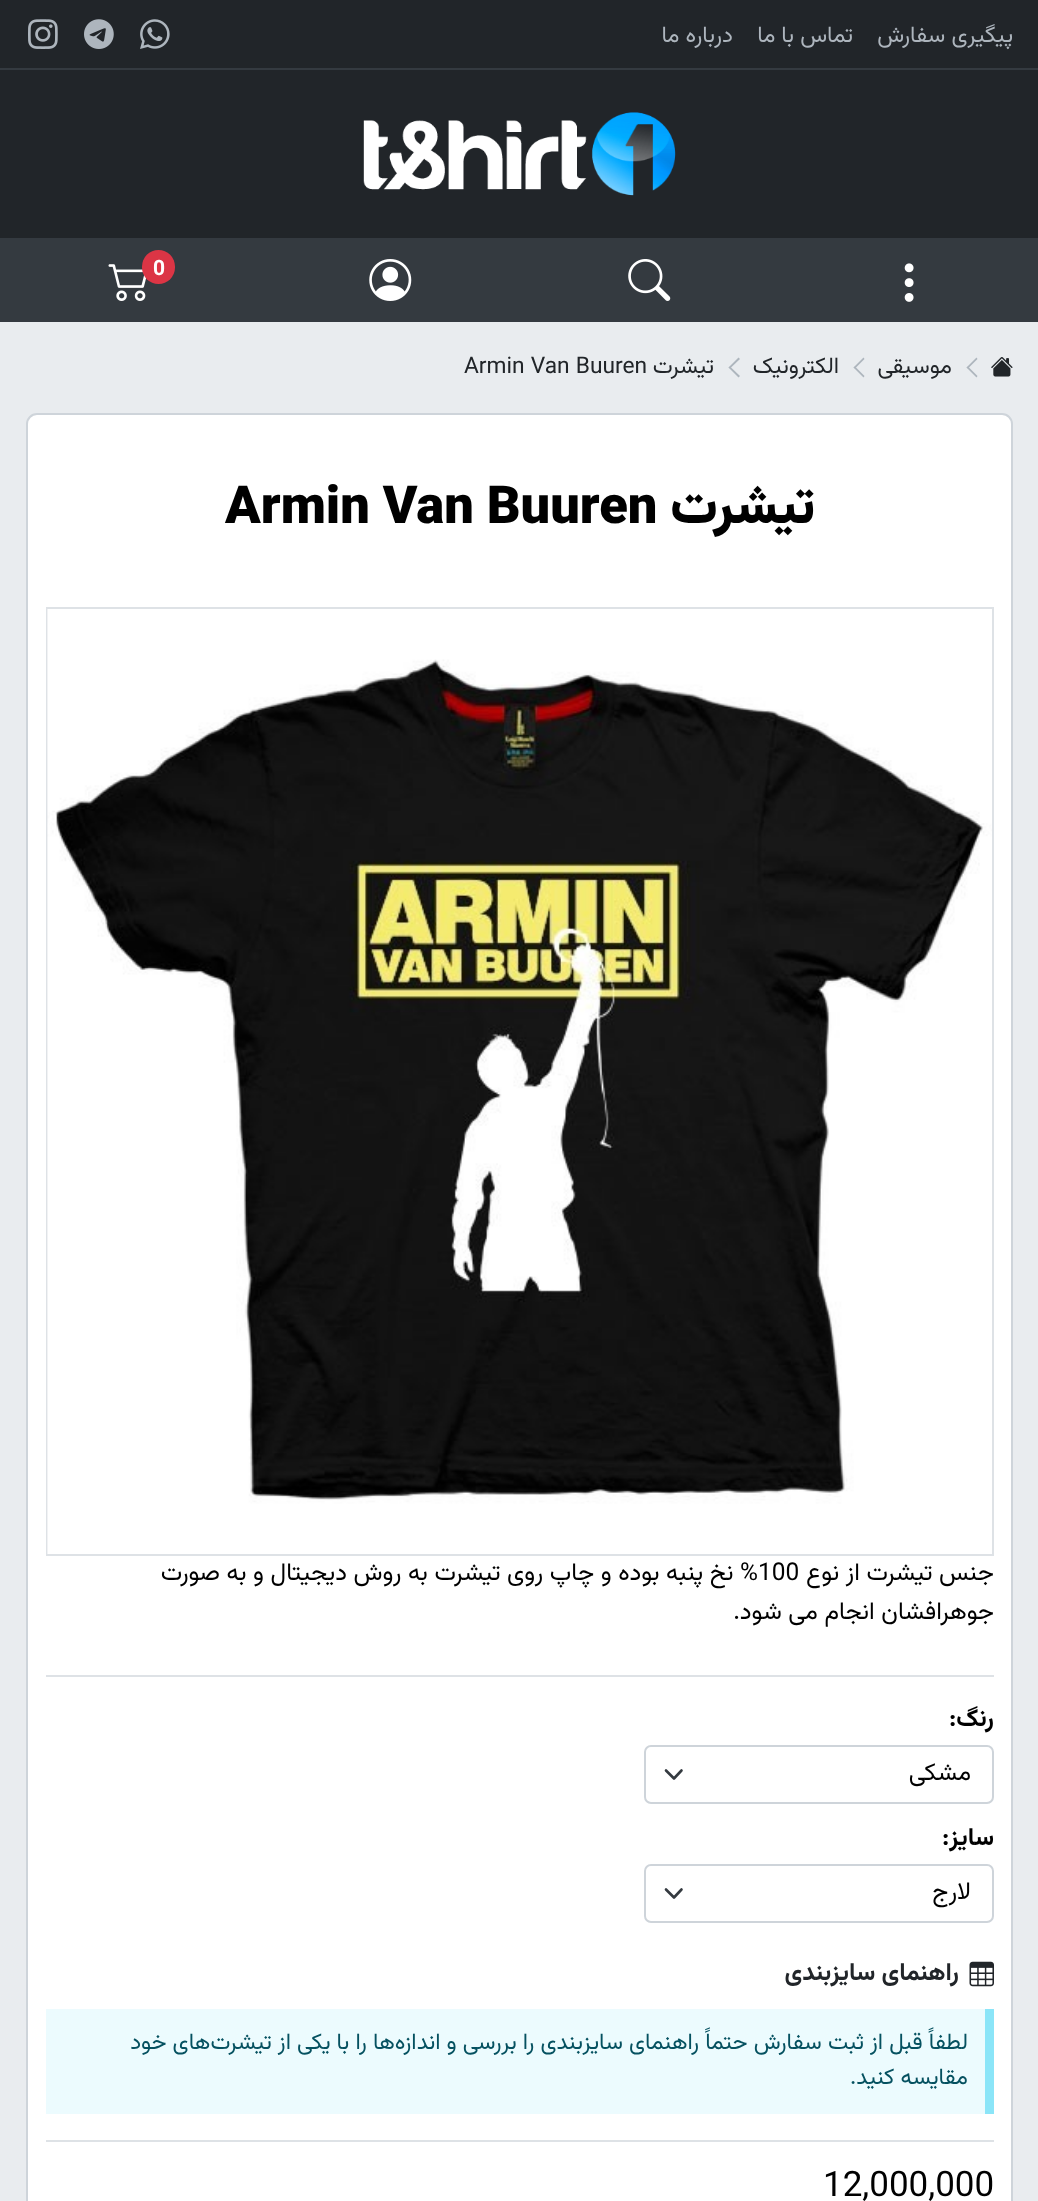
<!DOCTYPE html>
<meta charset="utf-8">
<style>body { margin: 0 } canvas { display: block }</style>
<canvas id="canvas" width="1038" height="2201"></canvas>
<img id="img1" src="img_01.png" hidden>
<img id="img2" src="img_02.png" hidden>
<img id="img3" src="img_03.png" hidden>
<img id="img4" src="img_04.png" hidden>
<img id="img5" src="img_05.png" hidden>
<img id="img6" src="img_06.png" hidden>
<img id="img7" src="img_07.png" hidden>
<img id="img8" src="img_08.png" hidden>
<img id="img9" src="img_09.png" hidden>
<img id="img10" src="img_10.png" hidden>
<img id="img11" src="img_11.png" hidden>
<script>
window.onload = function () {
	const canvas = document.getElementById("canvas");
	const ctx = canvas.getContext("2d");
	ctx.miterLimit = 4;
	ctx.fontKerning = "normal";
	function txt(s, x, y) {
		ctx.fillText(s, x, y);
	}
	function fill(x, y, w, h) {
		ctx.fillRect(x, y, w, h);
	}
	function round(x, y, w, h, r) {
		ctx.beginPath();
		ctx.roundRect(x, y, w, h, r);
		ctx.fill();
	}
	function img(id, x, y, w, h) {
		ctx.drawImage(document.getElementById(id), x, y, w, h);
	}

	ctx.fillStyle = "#212529";
	fill(0, 0, 1038, 2201);
	ctx.fillStyle = "#343A40";
	fill(0, 68, 1038, 2);
	img("img1", 140, 19, 30, 30);
	img("img2", 84, 19, 30, 30);
	img("img3", 28, 19, 30, 30);
	img("img4", 363, 112, 313, 84);
	fill(0, 238, 1038, 84);
	img("img5", 904, 263, 10, 39);
	img("img6", 628, 259, 43, 42);
	img("img7", 369, 259, 43, 42);
	img("img8", 108, 264, 39, 37);
	ctx.fillStyle = "#DC3545";
	round(142, 250, 33, 34, 16.5);
	ctx.fillStyle = "#E9ECEF";
	fill(0, 322, 1038, 1879);
	img("img9", 991, 357, 22, 20);
	ctx.fillStyle = "#ADB5BD";
	ctx.beginPath();
	ctx.moveTo(976.5, 377.5);
	ctx.lineTo(966.5, 367.5);
	ctx.lineTo(968, 366.5);
	ctx.lineTo(977.5, 376);
	ctx.closePath();
	ctx.fill();
	ctx.beginPath();
	ctx.moveTo(968, 368.5);
	ctx.lineTo(966.5, 367.5);
	ctx.lineTo(976.5, 357.5);
	ctx.lineTo(977.5, 359);
	ctx.closePath();
	ctx.fill();
	ctx.beginPath();
	ctx.moveTo(863.5, 377.5);
	ctx.lineTo(853.5, 367.5);
	ctx.lineTo(855, 366.5);
	ctx.lineTo(864.5, 376);
	ctx.closePath();
	ctx.fill();
	ctx.beginPath();
	ctx.moveTo(855, 368.5);
	ctx.lineTo(853.5, 367.5);
	ctx.lineTo(863.5, 357.5);
	ctx.lineTo(864.5, 359);
	ctx.closePath();
	ctx.fill();
	ctx.beginPath();
	ctx.moveTo(738.5, 377.5);
	ctx.lineTo(728.5, 367.5);
	ctx.lineTo(730, 366.5);
	ctx.lineTo(740, 376);
	ctx.closePath();
	ctx.fill();
	ctx.beginPath();
	ctx.moveTo(730, 368.5);
	ctx.lineTo(728.5, 367.5);
	ctx.lineTo(738.5, 357.5);
	ctx.lineTo(740, 359);
	ctx.closePath();
	ctx.fill();
	ctx.fillStyle = "#FFFFFF";
	ctx.beginPath();
	ctx.roundRect(27, 414, 985, 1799, 10);
	ctx.fill();
	ctx.strokeStyle = "#CED4DA";
	ctx.lineWidth = 2;
	ctx.stroke();
	ctx.strokeStyle = "#DEE2E6";
	ctx.strokeRect(47, 608, 946, 947);
	img("img10", 47, 609, 945, 945);
	ctx.fillStyle = "#DEE2E6";
	fill(46, 1675, 948, 2);
	ctx.beginPath();
	ctx.moveTo(666, 1770.5);
	ctx.lineTo(674, 1778.5);
	ctx.lineTo(681.5, 1770.5);
	ctx.strokeStyle = "#343A40";
	ctx.lineWidth = 2.6;
	ctx.lineCap = "round";
	ctx.lineJoin = "round";
	ctx.stroke();
	ctx.beginPath();
	ctx.roundRect(645, 1746, 348, 57, 6);
	ctx.strokeStyle = "#CED4DA";
	ctx.lineWidth = 2;
	ctx.lineJoin = "miter";
	ctx.stroke();
	ctx.beginPath();
	ctx.moveTo(666, 1889.5);
	ctx.lineTo(674, 1897.5);
	ctx.lineTo(681.5, 1889.5);
	ctx.strokeStyle = "#343A40";
	ctx.lineWidth = 2.6;
	ctx.lineJoin = "round";
	ctx.stroke();
	ctx.beginPath();
	ctx.roundRect(645, 1865, 348, 57, 6);
	ctx.strokeStyle = "#CED4DA";
	ctx.lineWidth = 2;
	ctx.lineJoin = "miter";
	ctx.stroke();
	img("img11", 969, 1961, 25, 26);
	ctx.fillStyle = "#ECFBFE";
	fill(46, 2009, 939, 105);
	ctx.fillStyle = "#8BE5F8";
	fill(985, 2009, 9, 105);
	ctx.fillStyle = "#DEE2E6";
	fill(46, 2140, 948, 2);
	ctx.direction = "rtl";
	ctx.font = "22.75px Vazirmatn";
	ctx.fillStyle = "#ADB5BD";
	txt("پیگیری سفارش", 1013, 42);
	txt("تماس با ما", 853, 42);
	txt("درباره ما", 733, 42);
	ctx.direction = "ltr";
	ctx.font = "bold 21px Vazirmatn";
	ctx.fillStyle = "#FFFFFF";
	txt("0", 153, 275);
	ctx.direction = "rtl";
	ctx.font = "22.75px Vazirmatn";
	ctx.fillStyle = "#212529";
	txt("موسیقی", 952, 373);
	txt("الکترونیک", 839, 373);
	txt("تیشرت", 714, 373);
	ctx.direction = "ltr";
	txt("Armin Van Buuren", 464, 373);
	ctx.direction = "rtl";
	ctx.font = "900 52.5px Vazirmatn";
	ctx.fillStyle = "#000000";
	txt("تیشرت", 815, 523);
	ctx.direction = "ltr";
	txt("Armin Van Buuren", 225, 523);
	ctx.direction = "rtl";
	ctx.font = "24.5px Vazirmatn";
	txt("جنس تیشرت از نوع", 994, 1580);
	ctx.direction = "ltr";
	txt("100", 758, 1580);
	ctx.direction = "rtl";
	txt("% نخ پنبه بوده و چاپ روی تیشرت به روش دیجیتال و به صورت", 758, 1580);
	txt("جوهرافشان انجام می شود.", 994, 1619);
	ctx.font = "bold 24.5px Vazirmatn";
	txt("رنگ:", 994, 1726);
	ctx.font = "24.5px Vazirmatn";
	txt("مشکی", 971, 1780);
	ctx.font = "bold 24.5px Vazirmatn";
	txt("سایز:", 994, 1845);
	ctx.font = "24.5px Vazirmatn";
	txt("لارج", 971, 1899);
	ctx.font = "bold 24.5px Vazirmatn";
	ctx.fillStyle = "#212529";
	txt("راهنمای سایزبندی", 959, 1980);
	ctx.font = "22.75px Vazirmatn";
	ctx.fillStyle = "#055160";
	txt("لطفاً قبل از ثبت سفارش حتماً راهنمای سایزبندی را بررسی و اندازه‌ها را با یکی از تیشرت‌های خود", 968, 2049);
	txt("مقایسه کنید.", 968, 2084);
	ctx.direction = "ltr";
	ctx.font = "35px Vazirmatn";
	ctx.fillStyle = "#000000";
	txt("12,000,000", 823, 2196);
};
</script>
